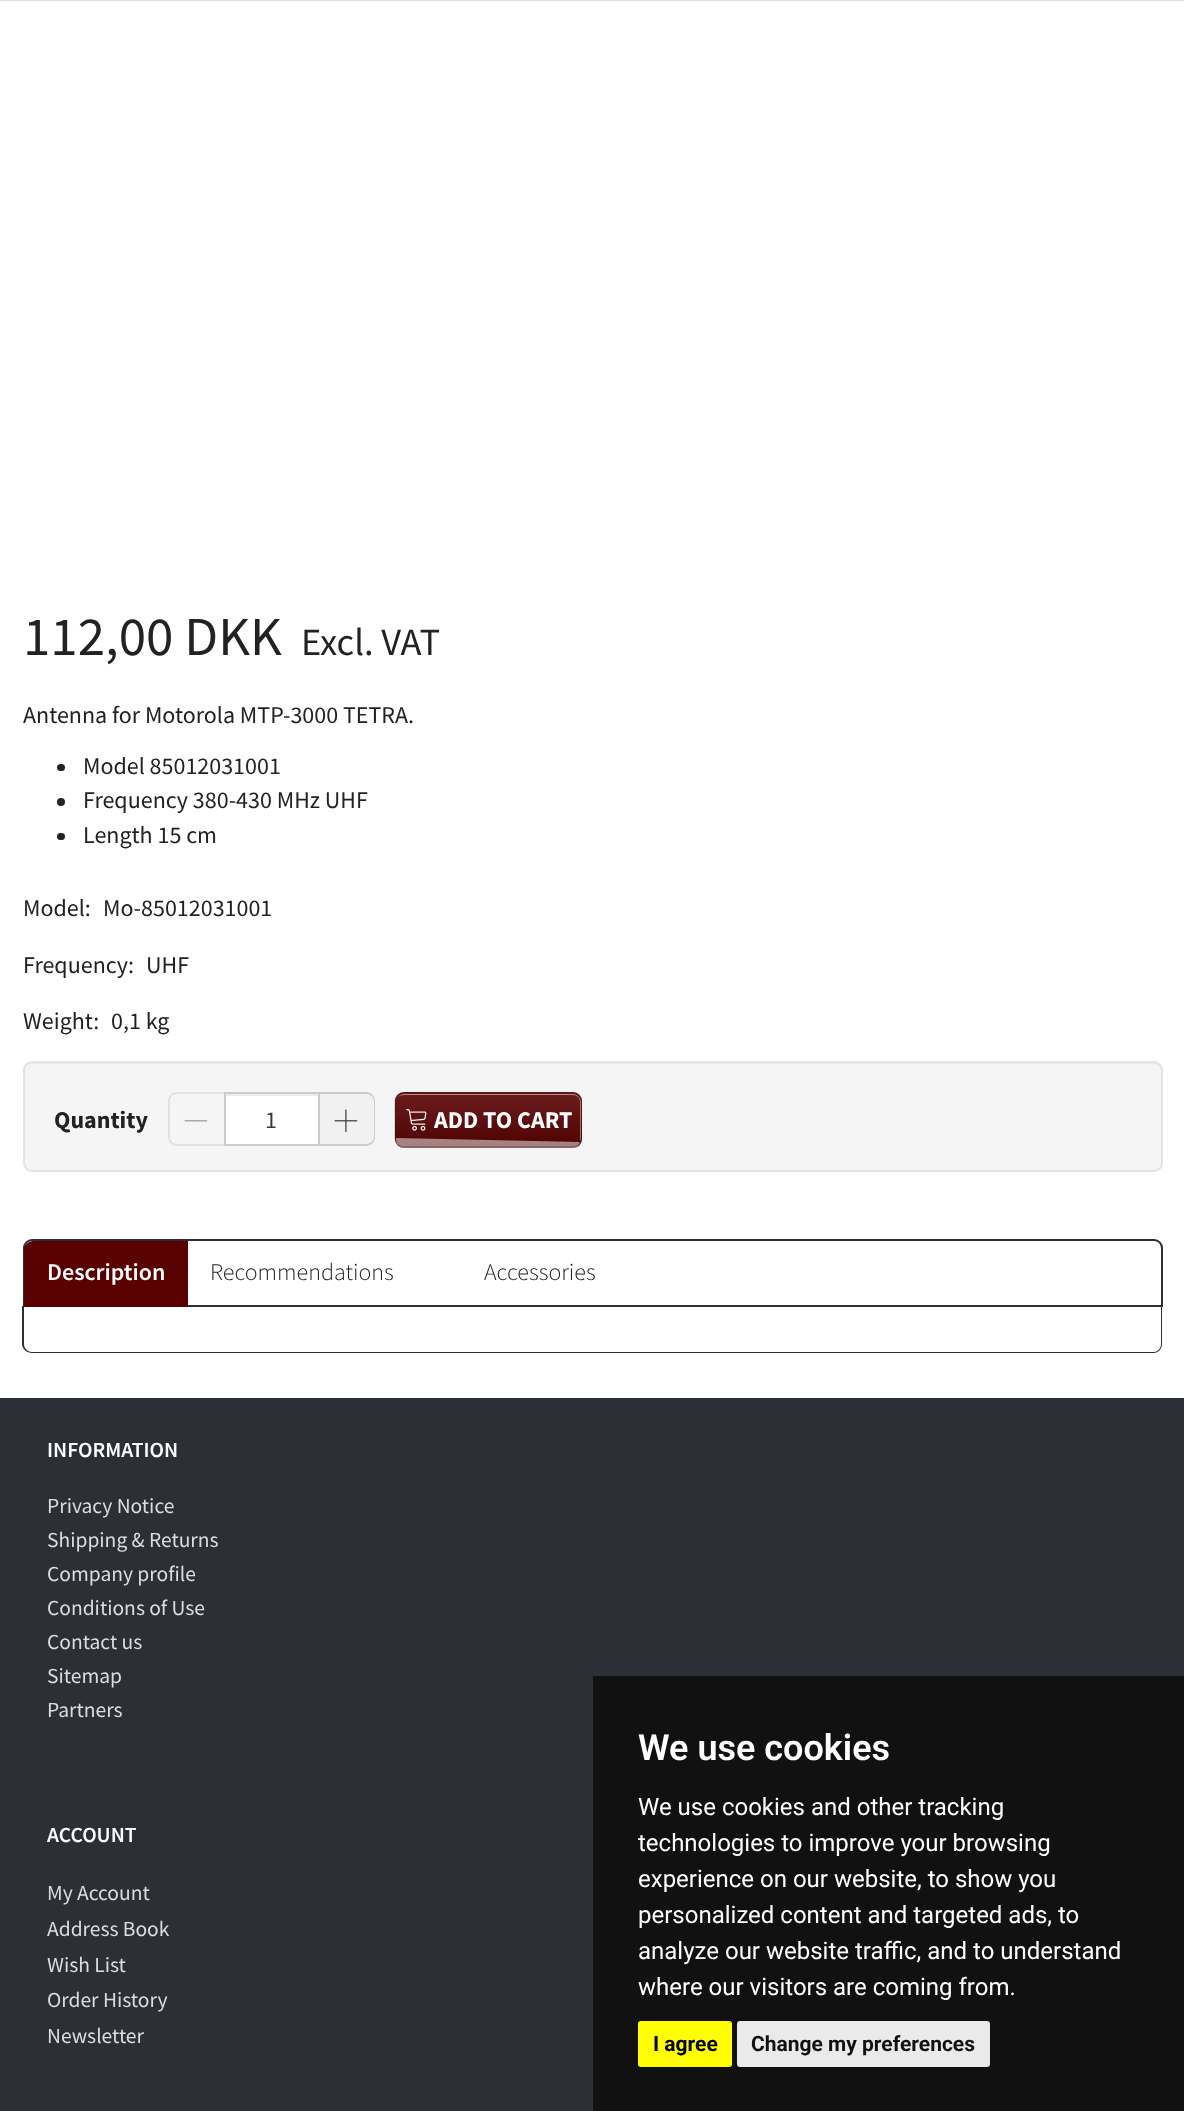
<!DOCTYPE html>
<meta charset="utf-8">
<style>body { margin: 0 } canvas { display: block }</style>
<canvas id="canvas" width="1184" height="2111"></canvas>
<img id="img1" src="img_01.png" hidden>
<img id="img2" src="img_02.png" hidden>
<img id="img3" src="img_03.png" hidden>
<script>
window.onload = function () {
	const canvas = document.getElementById("canvas");
	const ctx = canvas.getContext("2d");
	ctx.miterLimit = 4;
	ctx.fontKerning = "normal";
	function txt(s, x, y) {
		ctx.fillText(s, x, y);
	}
	function fill(x, y, w, h) {
		ctx.fillRect(x, y, w, h);
	}
	function round(x, y, w, h, r) {
		ctx.beginPath();
		ctx.roundRect(x, y, w, h, r);
		ctx.fill();
	}
	function img(id, x, y, w, h) {
		ctx.drawImage(document.getElementById(id), x, y, w, h);
	}
	let gradient;

	ctx.fillStyle = "#FFFFFF";
	fill(0, 0, 1184, 2111);
	ctx.fillStyle = "#DDDDDD";
	fill(0, 0, 1184, 1);
	ctx.fillStyle = "#222222";
	round(57, 764, 8, 7, 3.5);
	ctx.beginPath();
	ctx.arc(61, 802, 4, 0, Math.PI * 2);
	ctx.fill();
	round(57, 833, 8, 7, 3.5);
	ctx.fillStyle = "#F5F5F5";
	round(23, 1061, 1140, 111, 9);
	ctx.fillStyle = "#E9E9E9";
	ctx.beginPath();
	ctx.moveTo(32, 1064);
	ctx.lineTo(1154, 1064);
	ctx.bezierCurveTo(1158, 1064, 1161, 1067, 1161, 1071);
	ctx.lineTo(1161, 1070);
	ctx.bezierCurveTo(1161, 1066, 1157, 1062, 1153, 1062);
	ctx.lineTo(32, 1062);
	ctx.bezierCurveTo(28, 1062, 24, 1066, 24, 1070);
	ctx.lineTo(24, 1071);
	ctx.bezierCurveTo(24, 1067, 27, 1064, 32, 1064);
	ctx.closePath();
	ctx.fill();
	ctx.beginPath();
	ctx.roundRect(24, 1062, 1138, 109, 8);
	ctx.strokeStyle = "#E3E3E3";
	ctx.lineWidth = 2;
	ctx.stroke();
	ctx.fillStyle = "#E1E1E1";
	ctx.beginPath();
	ctx.moveTo(177, 1092);
	ctx.lineTo(224, 1092);
	ctx.lineTo(224, 1146);
	ctx.lineTo(177, 1146);
	ctx.bezierCurveTo(172, 1146, 168, 1142, 168, 1137);
	ctx.lineTo(168, 1101);
	ctx.bezierCurveTo(168, 1096, 172, 1092, 177, 1092);
	ctx.closePath();
	ctx.moveTo(177, 1094);
	ctx.lineTo(224, 1094);
	ctx.lineTo(224, 1144);
	ctx.lineTo(177, 1144);
	ctx.bezierCurveTo(173, 1144, 170, 1141, 170, 1137);
	ctx.lineTo(170, 1101);
	ctx.bezierCurveTo(170, 1097, 173, 1094, 177, 1094);
	ctx.closePath();
	ctx.fill("evenodd");
	img("img1", 184, 1120, 24, 2);
	ctx.fillStyle = "#FFFFFF";
	fill(226, 1096, 92, 48);
	ctx.fillStyle = "#ECECEC";
	fill(225, 1094, 93, 2);
	ctx.strokeStyle = "#CCCCCC";
	ctx.strokeRect(225, 1093, 94, 52);
	ctx.fillStyle = "#F1F1F1";
	ctx.beginPath();
	ctx.roundRect(320, 1092, 55, 54, [0, 9, 9, 0]);
	ctx.fill();
	ctx.fillStyle = "#CCCCCC";
	ctx.beginPath();
	ctx.moveTo(320, 1092);
	ctx.lineTo(366, 1092);
	ctx.bezierCurveTo(371, 1092, 375, 1096, 375, 1101);
	ctx.lineTo(375, 1137);
	ctx.bezierCurveTo(375, 1142, 371, 1146, 366, 1146);
	ctx.lineTo(320, 1146);
	ctx.closePath();
	ctx.moveTo(320, 1094);
	ctx.lineTo(366, 1094);
	ctx.bezierCurveTo(370, 1094, 374, 1097, 374, 1101);
	ctx.lineTo(374, 1137);
	ctx.bezierCurveTo(374, 1141, 370, 1144, 366, 1144);
	ctx.lineTo(320, 1144);
	ctx.closePath();
	ctx.fill("evenodd");
	img("img2", 334, 1109, 24, 24);
	ctx.fillStyle = "#590000";
	round(395, 1092, 187, 56, 9);
	gradient = ctx.createLinearGradient(488, 1092, 488, 1148);
	gradient.addColorStop(0, "rgba(255, 255, 255, 0.1)");
	gradient.addColorStop(1, "rgba(0, 0, 0, 0.15)");
	ctx.fillStyle = gradient;
	round(395, 1092, 187, 56, 9);
	ctx.fillStyle = "rgba(255, 255, 255, 0.5)";
	ctx.beginPath();
	ctx.moveTo(404, 1095);
	ctx.lineTo(573, 1095);
	ctx.bezierCurveTo(577, 1095, 580, 1098, 580, 1102);
	ctx.lineTo(580, 1140);
	ctx.lineTo(580, 1142);
	ctx.bezierCurveTo(579, 1146, 576, 1148, 573, 1148);
	ctx.lineTo(404, 1148);
	ctx.bezierCurveTo(399, 1148, 396, 1144, 396, 1140);
	ctx.lineTo(396, 1138);
	ctx.lineTo(580, 1142);
	ctx.bezierCurveTo(580, 1141, 581, 1140, 581, 1138);
	ctx.lineTo(581, 1102);
	ctx.bezierCurveTo(581, 1098, 577, 1094, 573, 1094);
	ctx.lineTo(404, 1094);
	ctx.bezierCurveTo(400, 1094, 396, 1098, 396, 1102);
	ctx.bezierCurveTo(396, 1098, 399, 1095, 404, 1095);
	ctx.closePath();
	ctx.fill();
	ctx.beginPath();
	ctx.moveTo(579, 1144.5);
	ctx.bezierCurveTo(577.5, 1146, 575, 1147, 573, 1147);
	ctx.lineTo(403.5, 1147);
	ctx.bezierCurveTo(401.5, 1147, 399, 1146, 397.5, 1144.5);
	ctx.strokeStyle = "rgba(0, 0, 0, 0.25)";
	ctx.lineWidth = 1.5;
	ctx.stroke();
	ctx.beginPath();
	ctx.moveTo(397.5, 1144.5);
	ctx.bezierCurveTo(393.5, 1140, 395, 1131, 395, 1126);
	ctx.bezierCurveTo(395, 1087, 390, 1093, 432, 1093);
	ctx.lineTo(545, 1093);
	ctx.bezierCurveTo(586.5, 1093, 581, 1087, 581, 1126);
	ctx.bezierCurveTo(581, 1131, 583, 1140, 579, 1144.5);
	ctx.strokeStyle = "rgba(0, 0, 0, 0.15)";
	ctx.stroke();
	img("img3", 406, 1109, 21, 22);
	ctx.fillStyle = "#2D2F37";
	ctx.beginPath();
	ctx.moveTo(22, 1306);
	ctx.lineTo(1162, 1306);
	ctx.lineTo(1162, 1344);
	ctx.bezierCurveTo(1162, 1349, 1158, 1353, 1154, 1353);
	ctx.lineTo(32, 1353);
	ctx.bezierCurveTo(27, 1353, 22, 1349, 22, 1344);
	ctx.closePath();
	ctx.moveTo(24, 1306);
	ctx.lineTo(1161, 1306);
	ctx.lineTo(1161, 1344);
	ctx.bezierCurveTo(1161, 1348, 1158, 1352, 1154, 1352);
	ctx.lineTo(32, 1352);
	ctx.bezierCurveTo(27, 1352, 24, 1348, 24, 1344);
	ctx.closePath();
	ctx.fill("evenodd");
	ctx.fillStyle = "#FFFFFF";
	ctx.beginPath();
	ctx.roundRect(24, 1240, 1138, 66, [8, 8, 0, 0]);
	ctx.fill();
	ctx.strokeStyle = "#2D2F37";
	ctx.lineWidth = 2;
	ctx.stroke();
	ctx.fillStyle = "#590000";
	ctx.beginPath();
	ctx.roundRect(24, 1241, 164, 66, [9, 0, 0, 0]);
	ctx.fill();
	ctx.fillStyle = "#2D2F37";
	fill(0, 1398, 1184, 713);
	ctx.fillStyle = "#111111";
	fill(593, 1676, 591, 435);
	ctx.fillStyle = "#FFFF00";
	round(638, 2021, 94, 46, 3);
	ctx.fillStyle = "#EAEAEA";
	round(737, 2021, 253, 46, 3);
	ctx.font = "55px Source Sans Pro";
	ctx.fillStyle = "#222222";
	txt("112,00 DKK", 23, 655);
	ctx.font = "38.5px Source Sans Pro";
	txt("Excl. VAT", 301, 655);
	ctx.font = "24px Source Sans Pro";
	txt("Antenna for Motorola MTP-3000 TETRA.", 23, 723);
	txt("Model 85012031001", 83, 774);
	txt("Frequency 380-430 MHz UHF", 83, 808);
	txt("Length 15 cm", 83, 843);
	txt("Model:", 23, 916);
	txt("Mo-85012031001", 103, 916);
	txt("Frequency:", 23, 973);
	txt("UHF", 146, 973);
	txt("Weight:", 23, 1029);
	txt("0,1 kg", 111, 1029);
	ctx.font = "bold 24px Source Sans Pro";
	txt("Quantity", 54, 1128);
	ctx.font = "24px Source Sans Pro";
	ctx.fillStyle = "#383838";
	txt("1", 265, 1128);
	ctx.font = "bold 24px Source Sans Pro";
	ctx.fillStyle = "#FFFFFF";
	txt("ADD TO CART", 434, 1128);
	ctx.font = "600 24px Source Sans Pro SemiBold";
	txt("Description", 47, 1280);
	ctx.font = "300 24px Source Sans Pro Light";
	ctx.fillStyle = "#222222";
	txt("Recommendations", 210, 1280);
	txt("Accessories", 484, 1280);
	ctx.font = "600 21.5px Source Sans Pro SemiBold";
	ctx.fillStyle = "#FFFFFF";
	txt("INFORMATION", 47, 1457);
	ctx.font = "21.5px Source Sans Pro";
	ctx.fillStyle = "#DDDDDD";
	txt("Privacy Notice", 47, 1513);
	txt("Shipping & Returns", 47, 1547);
	txt("Company profile", 47, 1581);
	txt("Conditions of Use", 47, 1615);
	txt("Contact us", 47, 1649);
	txt("Sitemap", 47, 1683);
	txt("Partners", 47, 1717);
	ctx.font = "600 21.5px Source Sans Pro SemiBold";
	ctx.fillStyle = "#FFFFFF";
	txt("ACCOUNT", 47, 1842);
	ctx.font = "21.5px Source Sans Pro";
	ctx.fillStyle = "#DDDDDD";
	txt("My Account", 47, 1900);
	txt("Address Book", 47, 1936);
	txt("Wish List", 47, 1972);
	txt("Order History", 47, 2007);
	txt("Newsletter", 47, 2043);
	ctx.font = "600 36px Roboto";
	ctx.fillStyle = "#FFFFFF";
	txt("We use cookies", 638, 1760);
	ctx.font = "24px Roboto";
	txt("We use cookies and other tracking", 638, 1815);
	txt("technologies to improve your browsing", 638, 1851);
	txt("experience on our website, to show you", 638, 1887);
	txt("personalized content and targeted ads, to", 638, 1923);
	txt("analyze our website traffic, and to understand", 638, 1959);
	txt("where our visitors are coming from.", 638, 1995);
	ctx.font = "bold 21px Roboto";
	ctx.fillStyle = "#000000";
	txt("I agree", 653, 2051);
	ctx.fillStyle = "#111111";
	txt("Change my preferences", 751, 2051);
};
</script>
